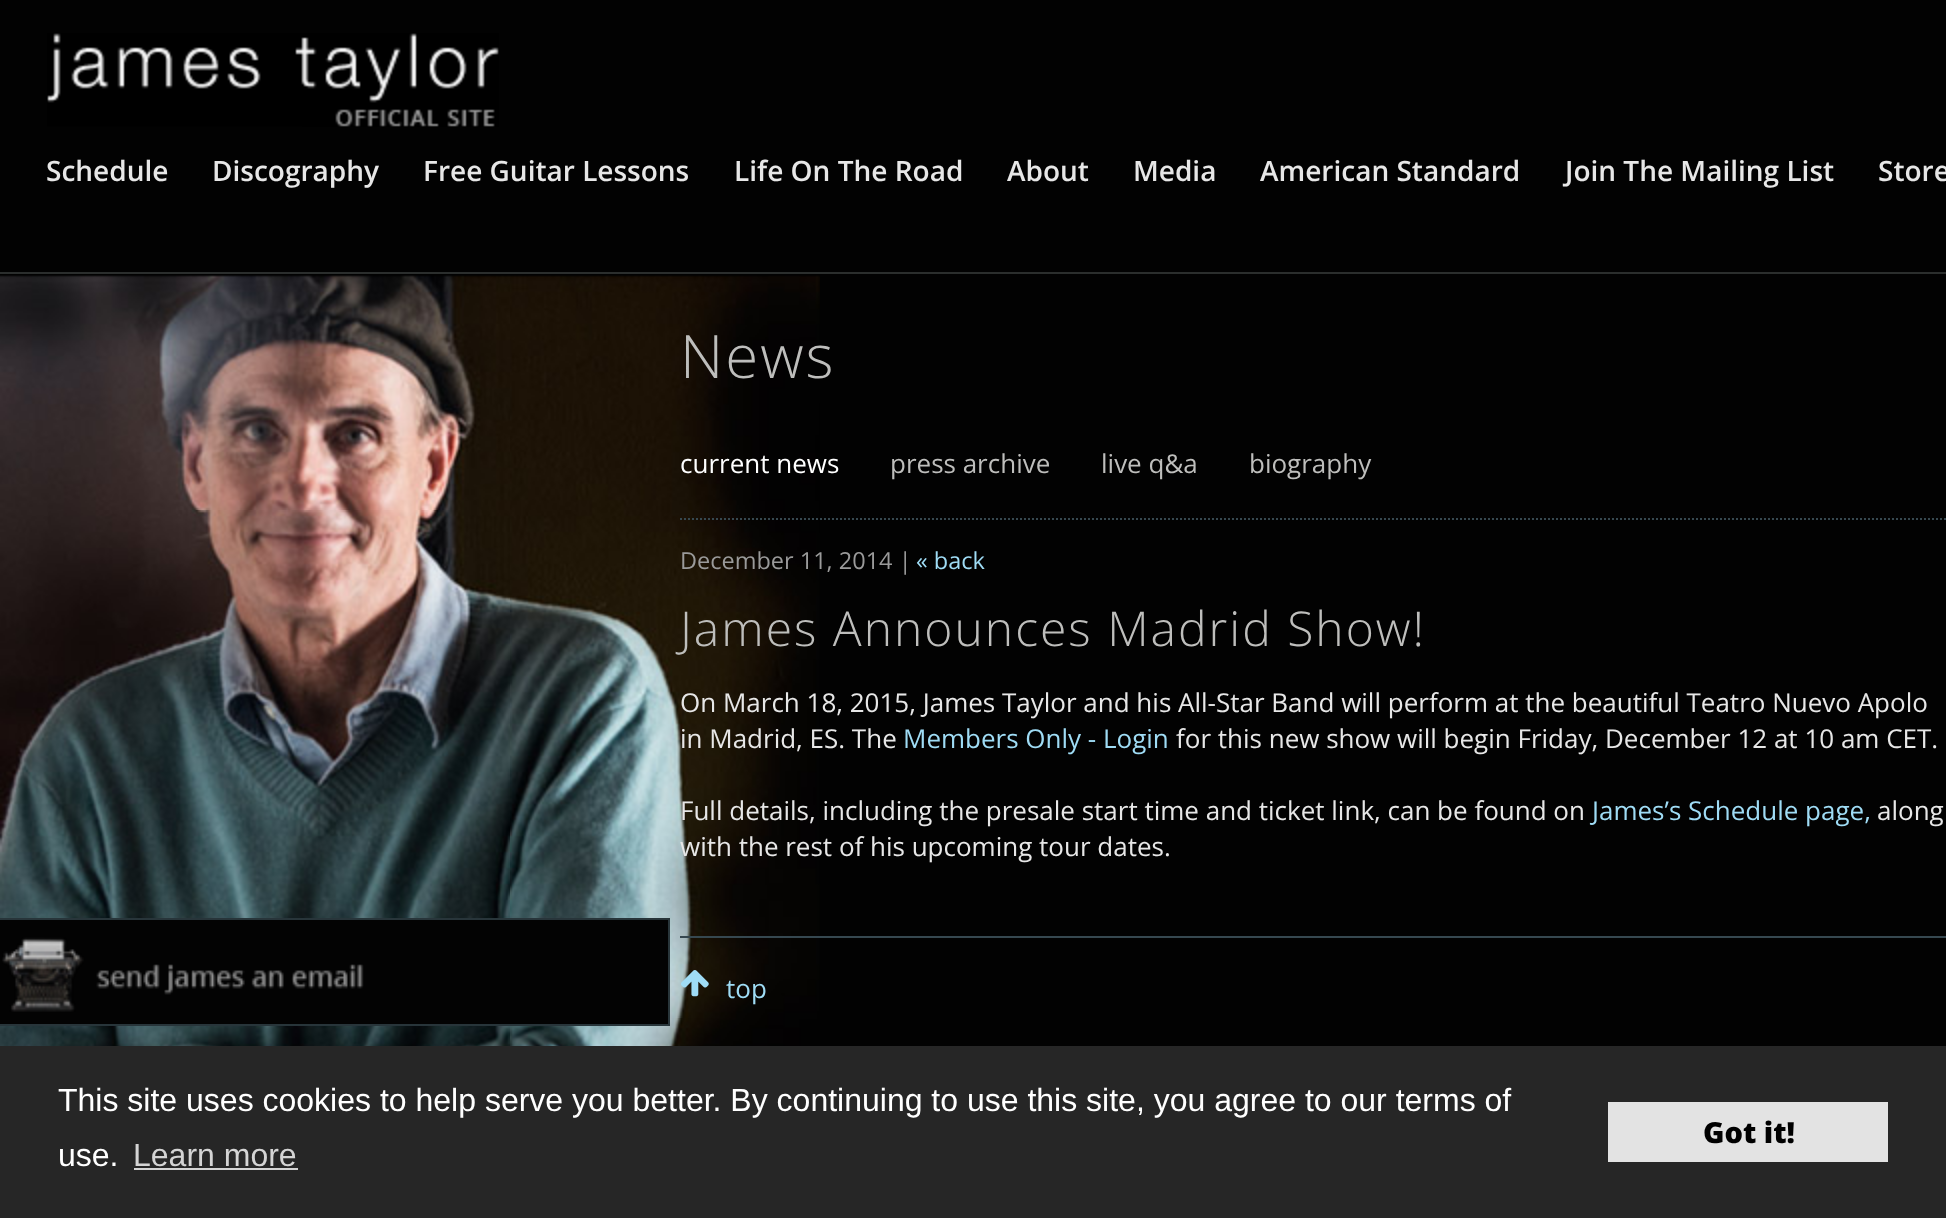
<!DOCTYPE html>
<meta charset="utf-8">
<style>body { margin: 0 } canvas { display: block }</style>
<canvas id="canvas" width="1946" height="1218"></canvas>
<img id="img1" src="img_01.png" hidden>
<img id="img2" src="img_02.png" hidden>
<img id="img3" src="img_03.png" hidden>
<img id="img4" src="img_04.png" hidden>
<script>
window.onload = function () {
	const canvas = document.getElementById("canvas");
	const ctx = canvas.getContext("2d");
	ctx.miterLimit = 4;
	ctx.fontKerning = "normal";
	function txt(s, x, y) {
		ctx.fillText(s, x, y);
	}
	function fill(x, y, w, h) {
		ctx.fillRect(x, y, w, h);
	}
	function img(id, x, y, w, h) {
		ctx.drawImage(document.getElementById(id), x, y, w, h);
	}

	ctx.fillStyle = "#020202";
	fill(0, 0, 1946, 1218);
	img("img1", 0, 275, 820, 771);
	ctx.fillStyle = "#2B2E2D";
	fill(0, 272, 1946, 2);
	img("img2", 47, 33, 452, 94);
	ctx.fillStyle = "#030303";
	ctx.beginPath();
	ctx.rect(-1, 919, 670, 106);
	ctx.fill();
	ctx.strokeStyle = "#28353A";
	ctx.lineWidth = 2;
	ctx.stroke();
	img("img3", 2, 937, 362, 75);
	ctx.beginPath();
	ctx.moveTo(680, 519);
	ctx.lineTo(1946, 519);
	ctx.strokeStyle = "#364850";
	ctx.setLineDash([2, 2]);
	ctx.stroke();
	ctx.fillStyle = "#364850";
	fill(680, 936, 1266, 2);
	img("img4", 681, 970, 28, 27);
	ctx.fillStyle = "#262626";
	fill(0, 1046, 1946, 172);
	ctx.fillStyle = "#D4D4D4";
	fill(134, 1168, 164, 2);
	ctx.fillStyle = "#E3E3E3";
	fill(1608, 1102, 280, 60);
	ctx.font = "600 28px Open Sans";
	ctx.fillStyle = "#E7E7E7";
	txt("Schedule", 46, 181);
	txt("Discography", 212, 181);
	txt("Free Guitar Lessons", 423, 181);
	txt("Life On The Road", 734, 181);
	txt("About", 1007, 181);
	txt("Media", 1133, 181);
	txt("American Standard", 1260, 181);
	txt("Join The Mailing List", 1565, 181);
	txt("Store", 1878, 181);
	ctx.letterSpacing = "2px";
	ctx.font = "300 60px Open Sans";
	ctx.fillStyle = "#BEBEBC";
	txt("News", 680, 378);
	ctx.letterSpacing = "0px";
	ctx.font = "26px Open Sans";
	ctx.fillStyle = "#FFFFFF";
	txt("current news", 680, 473);
	ctx.fillStyle = "#BEBEBC";
	txt("press archive", 890, 473);
	txt("live q&a", 1101, 473);
	txt("biography", 1249, 473);
	ctx.font = "23.5px Open Sans";
	ctx.fillStyle = "#9A9A9A";
	txt("December 11, 2014 |", 680, 569);
	ctx.fillStyle = "#9FDCF5";
	txt("« back", 916, 569);
	ctx.letterSpacing = "2px";
	ctx.font = "300 48px Open Sans";
	ctx.fillStyle = "#BEBEBC";
	txt("James Announces Madrid Show!", 680, 646);
	ctx.letterSpacing = "0px";
	ctx.font = "26px Open Sans";
	ctx.fillStyle = "#E7E7E7";
	txt("On March 18, 2015, James Taylor and his All-Star Band will perform at the beautiful Teatro Nuevo Apolo", 680, 712);
	txt("in Madrid, ES. The", 680, 748);
	ctx.fillStyle = "#9FDCF5";
	txt("Members Only - Login", 903, 748);
	ctx.fillStyle = "#E7E7E7";
	txt("for this new show will begin Friday, December 12 at 10 am CET.", 1176, 748);
	txt("Full details, including the presale start time and ticket link, can be found on", 680, 820);
	ctx.fillStyle = "#9FDCF5";
	txt("James’s Schedule page,", 1592, 820);
	ctx.fillStyle = "#E7E7E7";
	txt("along", 1877, 820);
	txt("with the rest of his upcoming tour dates.", 680, 856);
	ctx.fillStyle = "#9FDCF5";
	txt("top", 726, 998);
	ctx.font = "32px Liberation Sans";
	ctx.fillStyle = "#FFFFFF";
	txt("This site uses cookies to help serve you better. By continuing to use this site, you agree to our terms of", 58, 1111);
	txt("use.", 58, 1166);
	ctx.fillStyle = "#D4D4D4";
	txt("Learn more", 133, 1166);
	ctx.font = "800 29px Open Sans";
	ctx.fillStyle = "#000000";
	txt("Got it!", 1703, 1143);
};
</script>
